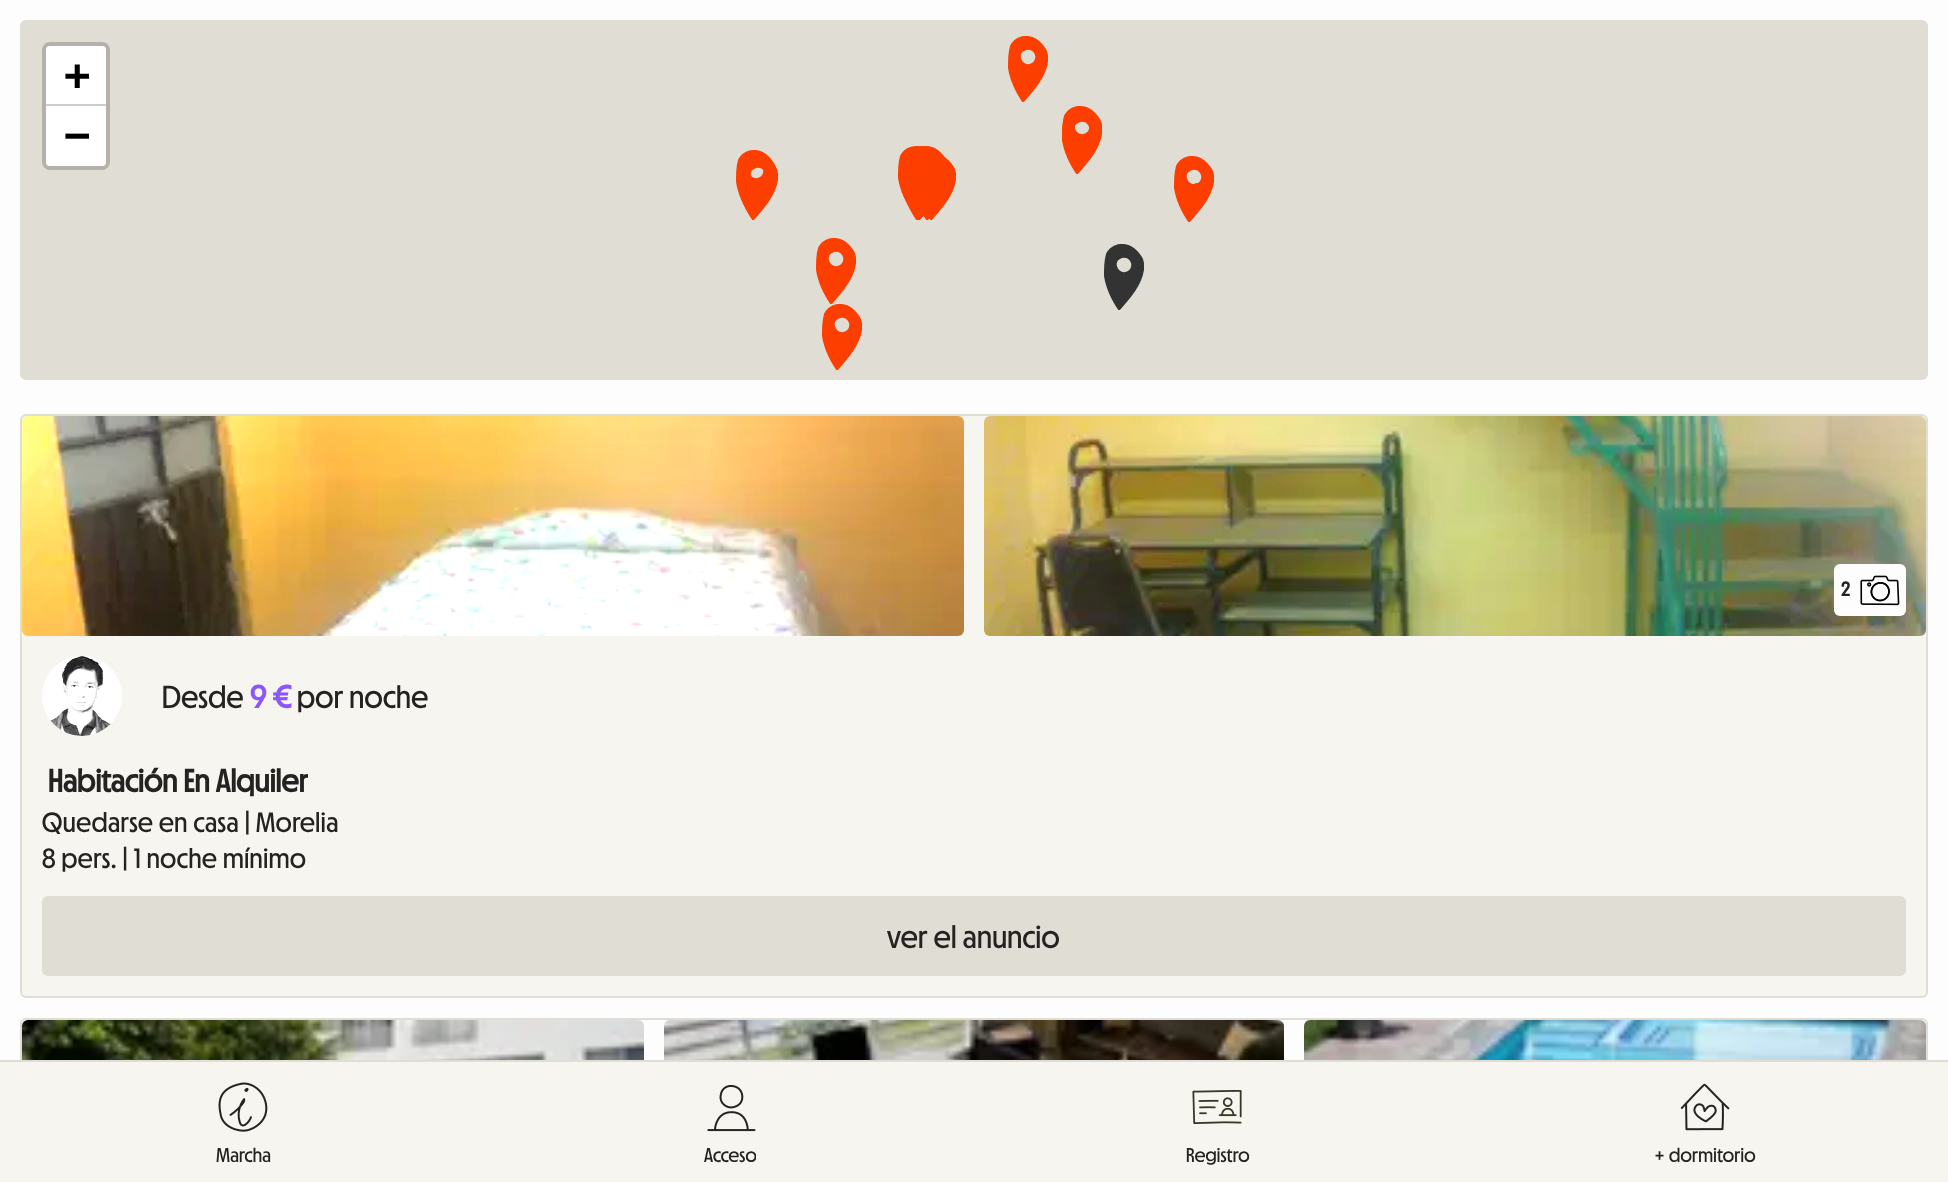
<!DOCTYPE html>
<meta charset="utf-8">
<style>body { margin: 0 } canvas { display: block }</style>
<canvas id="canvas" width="1948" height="1182"></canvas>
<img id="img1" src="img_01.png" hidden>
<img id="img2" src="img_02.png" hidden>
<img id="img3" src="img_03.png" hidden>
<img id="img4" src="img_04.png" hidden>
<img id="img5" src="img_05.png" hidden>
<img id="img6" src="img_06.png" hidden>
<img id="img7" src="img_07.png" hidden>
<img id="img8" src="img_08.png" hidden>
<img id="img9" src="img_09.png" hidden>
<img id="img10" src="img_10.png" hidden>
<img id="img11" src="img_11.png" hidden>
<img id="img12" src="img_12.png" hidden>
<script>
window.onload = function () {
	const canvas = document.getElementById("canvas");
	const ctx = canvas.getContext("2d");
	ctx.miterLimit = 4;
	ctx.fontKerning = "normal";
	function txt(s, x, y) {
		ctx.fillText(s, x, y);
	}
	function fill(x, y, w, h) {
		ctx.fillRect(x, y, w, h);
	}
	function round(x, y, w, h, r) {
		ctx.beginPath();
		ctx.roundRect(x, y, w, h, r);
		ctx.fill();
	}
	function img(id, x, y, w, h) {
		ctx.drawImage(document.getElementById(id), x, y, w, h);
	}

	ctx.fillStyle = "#FDFDFD";
	fill(0, 0, 1948, 1182);
	ctx.fillStyle = "#E0DDD4";
	ctx.beginPath();
	ctx.roundRect(21, 21, 1906, 358, 5);
	ctx.fill();
	ctx.strokeStyle = "#E0DDD4";
	ctx.lineWidth = 2;
	ctx.stroke();
	ctx.beginPath();
	ctx.roundRect(44, 44, 64, 124, 6);
	ctx.strokeStyle = "#B3B1AA";
	ctx.lineWidth = 4;
	ctx.stroke();
	ctx.fillStyle = "#FFFFFF";
	ctx.beginPath();
	ctx.roundRect(46, 46, 60, 60, [4, 4, 0, 0]);
	ctx.fill();
	ctx.fillStyle = "#CCCCCC";
	fill(46, 104, 60, 2);
	ctx.fillStyle = "#FFFFFF";
	ctx.beginPath();
	ctx.roundRect(46, 106, 60, 60, [0, 0, 4, 4]);
	ctx.fill();
	ctx.save();
	ctx.beginPath();
	ctx.rect(1008, 36, 40, 66);
	ctx.clip();
	ctx.fillStyle = "#FC3F00";
	ctx.beginPath();
	ctx.moveTo(1038, 40);
	ctx.bezierCurveTo(1029, 33, 1015, 35, 1010, 46);
	ctx.bezierCurveTo(1008, 53, 1008, 61, 1008, 68);
	ctx.bezierCurveTo(1010, 81, 1016, 93, 1023, 103);
	ctx.bezierCurveTo(1035, 90, 1053, 69, 1047, 51);
	ctx.bezierCurveTo(1045, 47, 1042, 43, 1038, 40);
	ctx.closePath();
	ctx.moveTo(1032, 63);
	ctx.bezierCurveTo(1024, 68, 1016, 55, 1024, 51);
	ctx.bezierCurveTo(1032, 46, 1040, 57, 1032, 63);
	ctx.closePath();
	ctx.fill();
	ctx.restore();
	ctx.save();
	ctx.beginPath();
	ctx.rect(1062, 106, 40, 66);
	ctx.clip();
	ctx.fillStyle = "#FC3F00";
	ctx.beginPath();
	ctx.moveTo(1092, 110);
	ctx.bezierCurveTo(1083, 103, 1069, 105, 1064, 116);
	ctx.bezierCurveTo(1062, 123, 1062, 131, 1062, 138);
	ctx.bezierCurveTo(1064, 151, 1070, 163, 1077, 173);
	ctx.bezierCurveTo(1089, 160, 1107, 139, 1101, 121);
	ctx.bezierCurveTo(1099, 117, 1096, 113, 1092, 110);
	ctx.closePath();
	ctx.moveTo(1086, 133);
	ctx.bezierCurveTo(1078, 138, 1070, 125, 1078, 121);
	ctx.bezierCurveTo(1086, 116, 1094, 127, 1086, 133);
	ctx.closePath();
	ctx.fill();
	ctx.restore();
	ctx.fillStyle = "#FC3F00";
	ctx.beginPath();
	ctx.moveTo(928, 150);
	ctx.bezierCurveTo(919, 143, 905, 145, 900, 156);
	ctx.bezierCurveTo(898, 163, 898, 171, 898, 178);
	ctx.bezierCurveTo(900, 191, 906, 203, 913, 213);
	ctx.bezierCurveTo(925, 200, 943, 179, 937, 161);
	ctx.bezierCurveTo(935, 157, 932, 153, 928, 150);
	ctx.closePath();
	ctx.moveTo(922, 173);
	ctx.bezierCurveTo(914, 178, 906, 165, 914, 161);
	ctx.bezierCurveTo(922, 156, 930, 167, 922, 173);
	ctx.closePath();
	ctx.fill();
	ctx.save();
	ctx.beginPath();
	ctx.rect(1062, 108, 40, 66);
	ctx.clip();
	ctx.beginPath();
	ctx.moveTo(1092, 112);
	ctx.bezierCurveTo(1083, 105, 1069, 107, 1064, 118);
	ctx.bezierCurveTo(1062, 125, 1062, 133, 1062, 140);
	ctx.bezierCurveTo(1064, 153, 1070, 165, 1077, 175);
	ctx.bezierCurveTo(1089, 162, 1107, 141, 1101, 123);
	ctx.bezierCurveTo(1099, 119, 1096, 115, 1092, 112);
	ctx.closePath();
	ctx.moveTo(1086, 135);
	ctx.bezierCurveTo(1078, 140, 1070, 127, 1078, 123);
	ctx.bezierCurveTo(1086, 118, 1094, 129, 1086, 135);
	ctx.closePath();
	ctx.fill();
	ctx.restore();
	ctx.beginPath();
	ctx.moveTo(934, 150);
	ctx.bezierCurveTo(925, 143, 911, 145, 906, 156);
	ctx.bezierCurveTo(904, 163, 904, 171, 904, 178);
	ctx.bezierCurveTo(906, 191, 912, 203, 919, 213);
	ctx.bezierCurveTo(931, 200, 949, 179, 943, 161);
	ctx.bezierCurveTo(941, 157, 938, 153, 934, 150);
	ctx.closePath();
	ctx.moveTo(928, 173);
	ctx.bezierCurveTo(920, 178, 912, 165, 920, 161);
	ctx.bezierCurveTo(928, 156, 936, 167, 928, 173);
	ctx.closePath();
	ctx.fill();
	ctx.beginPath();
	ctx.moveTo(938, 150);
	ctx.bezierCurveTo(929, 143, 915, 145, 910, 156);
	ctx.bezierCurveTo(908, 163, 908, 171, 908, 178);
	ctx.bezierCurveTo(910, 191, 916, 203, 923, 213);
	ctx.bezierCurveTo(935, 200, 953, 179, 947, 161);
	ctx.bezierCurveTo(945, 157, 942, 153, 938, 150);
	ctx.closePath();
	ctx.moveTo(932, 173);
	ctx.bezierCurveTo(924, 178, 916, 165, 924, 161);
	ctx.bezierCurveTo(932, 156, 940, 167, 932, 173);
	ctx.closePath();
	ctx.fill();
	ctx.save();
	ctx.beginPath();
	ctx.rect(736, 150, 40, 66);
	ctx.clip();
	ctx.beginPath();
	ctx.moveTo(766, 154);
	ctx.bezierCurveTo(757, 147, 743, 149, 738, 160);
	ctx.bezierCurveTo(736, 167, 736, 175, 736, 182);
	ctx.bezierCurveTo(738, 195, 744, 207, 751, 217);
	ctx.bezierCurveTo(763, 204, 781, 183, 775, 165);
	ctx.bezierCurveTo(773, 161, 770, 157, 766, 154);
	ctx.closePath();
	ctx.moveTo(760, 177);
	ctx.bezierCurveTo(752, 182, 744, 169, 752, 165);
	ctx.bezierCurveTo(760, 160, 768, 171, 760, 177);
	ctx.closePath();
	ctx.fill();
	ctx.restore();
	ctx.beginPath();
	ctx.moveTo(938, 152);
	ctx.bezierCurveTo(929, 145, 915, 147, 910, 158);
	ctx.bezierCurveTo(908, 165, 908, 173, 908, 180);
	ctx.bezierCurveTo(910, 193, 916, 205, 923, 215);
	ctx.bezierCurveTo(935, 202, 953, 181, 947, 163);
	ctx.bezierCurveTo(945, 159, 942, 155, 938, 152);
	ctx.closePath();
	ctx.moveTo(932, 175);
	ctx.bezierCurveTo(924, 180, 916, 167, 924, 163);
	ctx.bezierCurveTo(932, 158, 940, 169, 932, 175);
	ctx.closePath();
	ctx.fill();
	ctx.save();
	ctx.beginPath();
	ctx.rect(738, 154, 40, 66);
	ctx.clip();
	ctx.beginPath();
	ctx.moveTo(768, 158);
	ctx.bezierCurveTo(759, 151, 745, 153, 740, 164);
	ctx.bezierCurveTo(738, 171, 738, 179, 738, 186);
	ctx.bezierCurveTo(740, 199, 746, 211, 753, 221);
	ctx.bezierCurveTo(765, 208, 783, 187, 777, 169);
	ctx.bezierCurveTo(775, 165, 772, 161, 768, 158);
	ctx.closePath();
	ctx.moveTo(762, 181);
	ctx.bezierCurveTo(754, 186, 746, 173, 754, 169);
	ctx.bezierCurveTo(762, 164, 770, 175, 762, 181);
	ctx.closePath();
	ctx.fill();
	ctx.restore();
	ctx.save();
	ctx.beginPath();
	ctx.rect(910, 150, 40, 66);
	ctx.clip();
	ctx.beginPath();
	ctx.moveTo(940, 154);
	ctx.bezierCurveTo(931, 147, 917, 149, 912, 160);
	ctx.bezierCurveTo(910, 167, 910, 175, 910, 182);
	ctx.bezierCurveTo(912, 195, 918, 207, 925, 217);
	ctx.bezierCurveTo(937, 204, 955, 183, 949, 165);
	ctx.bezierCurveTo(947, 161, 944, 157, 940, 154);
	ctx.closePath();
	ctx.moveTo(934, 177);
	ctx.bezierCurveTo(926, 182, 918, 169, 926, 165);
	ctx.bezierCurveTo(934, 160, 942, 171, 934, 177);
	ctx.closePath();
	ctx.fill();
	ctx.restore();
	ctx.save();
	ctx.beginPath();
	ctx.rect(902, 154, 40, 66);
	ctx.clip();
	ctx.beginPath();
	ctx.moveTo(932, 158);
	ctx.bezierCurveTo(923, 151, 909, 153, 904, 164);
	ctx.bezierCurveTo(902, 171, 902, 179, 902, 186);
	ctx.bezierCurveTo(904, 199, 910, 211, 917, 221);
	ctx.bezierCurveTo(929, 208, 947, 187, 941, 169);
	ctx.bezierCurveTo(939, 165, 936, 161, 932, 158);
	ctx.closePath();
	ctx.moveTo(926, 181);
	ctx.bezierCurveTo(918, 186, 910, 173, 918, 169);
	ctx.bezierCurveTo(926, 164, 934, 175, 926, 181);
	ctx.closePath();
	ctx.fill();
	ctx.restore();
	ctx.save();
	ctx.beginPath();
	ctx.rect(904, 154, 40, 66);
	ctx.clip();
	ctx.beginPath();
	ctx.moveTo(934, 158);
	ctx.bezierCurveTo(925, 151, 911, 153, 906, 164);
	ctx.bezierCurveTo(904, 171, 904, 179, 904, 186);
	ctx.bezierCurveTo(906, 199, 912, 211, 919, 221);
	ctx.bezierCurveTo(931, 208, 949, 187, 943, 169);
	ctx.bezierCurveTo(941, 165, 938, 161, 934, 158);
	ctx.closePath();
	ctx.moveTo(928, 181);
	ctx.bezierCurveTo(920, 186, 912, 173, 920, 169);
	ctx.bezierCurveTo(928, 164, 936, 175, 928, 181);
	ctx.closePath();
	ctx.fill();
	ctx.restore();
	ctx.save();
	ctx.beginPath();
	ctx.rect(912, 154, 40, 66);
	ctx.clip();
	ctx.beginPath();
	ctx.moveTo(942, 158);
	ctx.bezierCurveTo(933, 151, 919, 153, 914, 164);
	ctx.bezierCurveTo(912, 171, 912, 179, 912, 186);
	ctx.bezierCurveTo(914, 199, 920, 211, 927, 221);
	ctx.bezierCurveTo(939, 208, 957, 187, 951, 169);
	ctx.bezierCurveTo(949, 165, 946, 161, 942, 158);
	ctx.closePath();
	ctx.moveTo(936, 181);
	ctx.bezierCurveTo(928, 186, 920, 173, 928, 169);
	ctx.bezierCurveTo(936, 164, 944, 175, 936, 181);
	ctx.closePath();
	ctx.fill();
	ctx.restore();
	ctx.save();
	ctx.beginPath();
	ctx.rect(916, 154, 40, 66);
	ctx.clip();
	ctx.beginPath();
	ctx.moveTo(946, 158);
	ctx.bezierCurveTo(937, 151, 923, 153, 918, 164);
	ctx.bezierCurveTo(916, 171, 916, 179, 916, 186);
	ctx.bezierCurveTo(918, 199, 924, 211, 931, 221);
	ctx.bezierCurveTo(943, 208, 961, 187, 955, 169);
	ctx.bezierCurveTo(953, 165, 950, 161, 946, 158);
	ctx.closePath();
	ctx.moveTo(940, 181);
	ctx.bezierCurveTo(932, 186, 924, 173, 932, 169);
	ctx.bezierCurveTo(940, 164, 948, 175, 940, 181);
	ctx.closePath();
	ctx.fill();
	ctx.restore();
	img("img1", 1193, 183, 5, 2);
	ctx.save();
	ctx.beginPath();
	ctx.rect(1174, 156, 40, 66);
	ctx.clip();
	ctx.beginPath();
	ctx.moveTo(1204, 160);
	ctx.bezierCurveTo(1195, 153, 1181, 155, 1176, 166);
	ctx.bezierCurveTo(1174, 173, 1174, 181, 1174, 188);
	ctx.bezierCurveTo(1176, 201, 1182, 213, 1189, 223);
	ctx.bezierCurveTo(1201, 210, 1219, 189, 1213, 171);
	ctx.bezierCurveTo(1211, 167, 1208, 163, 1204, 160);
	ctx.closePath();
	ctx.moveTo(1198, 183);
	ctx.bezierCurveTo(1190, 188, 1182, 175, 1190, 171);
	ctx.bezierCurveTo(1198, 166, 1206, 177, 1198, 183);
	ctx.closePath();
	ctx.fill();
	ctx.restore();
	ctx.save();
	ctx.beginPath();
	ctx.rect(816, 238, 40, 66);
	ctx.clip();
	ctx.beginPath();
	ctx.moveTo(846, 242);
	ctx.bezierCurveTo(837, 235, 823, 237, 818, 248);
	ctx.bezierCurveTo(816, 255, 816, 263, 816, 270);
	ctx.bezierCurveTo(818, 283, 824, 295, 831, 305);
	ctx.bezierCurveTo(843, 292, 861, 271, 855, 253);
	ctx.bezierCurveTo(853, 249, 850, 245, 846, 242);
	ctx.closePath();
	ctx.moveTo(840, 265);
	ctx.bezierCurveTo(832, 270, 824, 257, 832, 253);
	ctx.bezierCurveTo(840, 248, 848, 259, 840, 265);
	ctx.closePath();
	ctx.fill();
	ctx.restore();
	ctx.save();
	ctx.beginPath();
	ctx.rect(1104, 244, 40, 66);
	ctx.clip();
	ctx.fillStyle = "#333333";
	ctx.beginPath();
	ctx.moveTo(1134, 248);
	ctx.bezierCurveTo(1125, 241, 1111, 243, 1106, 254);
	ctx.bezierCurveTo(1104, 261, 1104, 269, 1104, 276);
	ctx.bezierCurveTo(1106, 289, 1112, 301, 1119, 311);
	ctx.bezierCurveTo(1131, 298, 1149, 277, 1143, 259);
	ctx.bezierCurveTo(1141, 255, 1138, 251, 1134, 248);
	ctx.closePath();
	ctx.moveTo(1128, 271);
	ctx.bezierCurveTo(1120, 276, 1112, 263, 1120, 259);
	ctx.bezierCurveTo(1128, 254, 1136, 265, 1128, 271);
	ctx.closePath();
	ctx.fill();
	ctx.restore();
	ctx.save();
	ctx.beginPath();
	ctx.rect(822, 304, 40, 66);
	ctx.clip();
	ctx.beginPath();
	ctx.moveTo(852, 308);
	ctx.bezierCurveTo(843, 301, 829, 303, 824, 314);
	ctx.bezierCurveTo(822, 321, 822, 329, 822, 336);
	ctx.bezierCurveTo(824, 349, 830, 361, 837, 371);
	ctx.bezierCurveTo(849, 358, 867, 337, 861, 319);
	ctx.bezierCurveTo(859, 315, 856, 311, 852, 308);
	ctx.closePath();
	ctx.moveTo(846, 331);
	ctx.bezierCurveTo(838, 336, 830, 323, 838, 319);
	ctx.bezierCurveTo(846, 314, 854, 325, 846, 331);
	ctx.closePath();
	ctx.fill();
	ctx.restore();
	ctx.fillStyle = "#F7F5F0";
	ctx.beginPath();
	ctx.roundRect(21, 415, 1906, 582, 5);
	ctx.fill();
	ctx.strokeStyle = "#E0DDD4";
	ctx.lineWidth = 2;
	ctx.stroke();
	img("img2", 22, 416, 942, 220);
	img("img3", 984, 416, 942, 220);
	ctx.fillStyle = "#FDFDFD";
	round(1834, 564, 72, 52, 6);
	img("img4", 1860, 575, 40, 31);
	img("img5", 42, 656, 80, 80);
	ctx.fillStyle = "#E0DDD4";
	round(42, 896, 1864, 80, 6);
	ctx.beginPath();
	ctx.roundRect(21, 1019, 1906, 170, 5);
	ctx.stroke();
	img("img6", 22, 1020, 622, 40);
	img("img7", 664, 1020, 620, 40);
	img("img8", 1304, 1020, 622, 40);
	ctx.fillStyle = "#F7F5F0";
	fill(0, 1062, 1948, 120);
	ctx.fillStyle = "#E0DDD4";
	fill(0, 1060, 1948, 2);
	img("img9", 218, 1082, 50, 50);
	img("img10", 707, 1085, 49, 47);
	img("img11", 1192, 1090, 50, 35);
	img("img12", 1680, 1083, 50, 48);
	ctx.letterSpacing = "0.3px";
	ctx.font = "bold 44px DejaVu Sans Mono";
	ctx.fillStyle = "#000000";
	txt("+", 64, 90);
	txt("−", 64, 150);
	ctx.letterSpacing = "1px";
	ctx.font = "bold 20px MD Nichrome";
	ctx.fillStyle = "#242322";
	txt("2", 1841, 596);
	ctx.letterSpacing = "0.3px";
	ctx.font = "32px MD Nichrome";
	txt("Desde", 162, 708);
	ctx.font = "bold 32px MD Nichrome";
	ctx.fillStyle = "#8C56FF";
	txt("9 €", 250, 708);
	ctx.font = "32px MD Nichrome";
	ctx.fillStyle = "#242322";
	txt("por noche", 297, 708);
	ctx.save();
	ctx.beginPath();
	ctx.rect(48, 756, 260, 48);
	ctx.clip();
	ctx.font = "bold 32px MD Nichrome";
	txt("Habitación En Alquiler", 48, 792);
	ctx.restore();
	ctx.letterSpacing = "0.55px";
	ctx.font = "28px MD Nichrome";
	txt("Quedarse en casa | Morelia", 42, 832);
	txt("8 pers. | 1 noche mínimo", 42, 868);
	ctx.letterSpacing = "0.3px";
	ctx.font = "32px MD Nichrome";
	txt("ver el anuncio", 887, 948);
	ctx.letterSpacing = "0.25px";
	ctx.font = "20px MD Nichrome";
	txt("Marcha", 216, 1162);
	ctx.save();
	ctx.beginPath();
	ctx.rect(704, 1132, 52, 50);
	ctx.clip();
	txt("Acceso", 704, 1162);
	ctx.restore();
	txt("Registro", 1186, 1162);
	txt("+ dormitorio", 1654, 1162);
};
</script>
